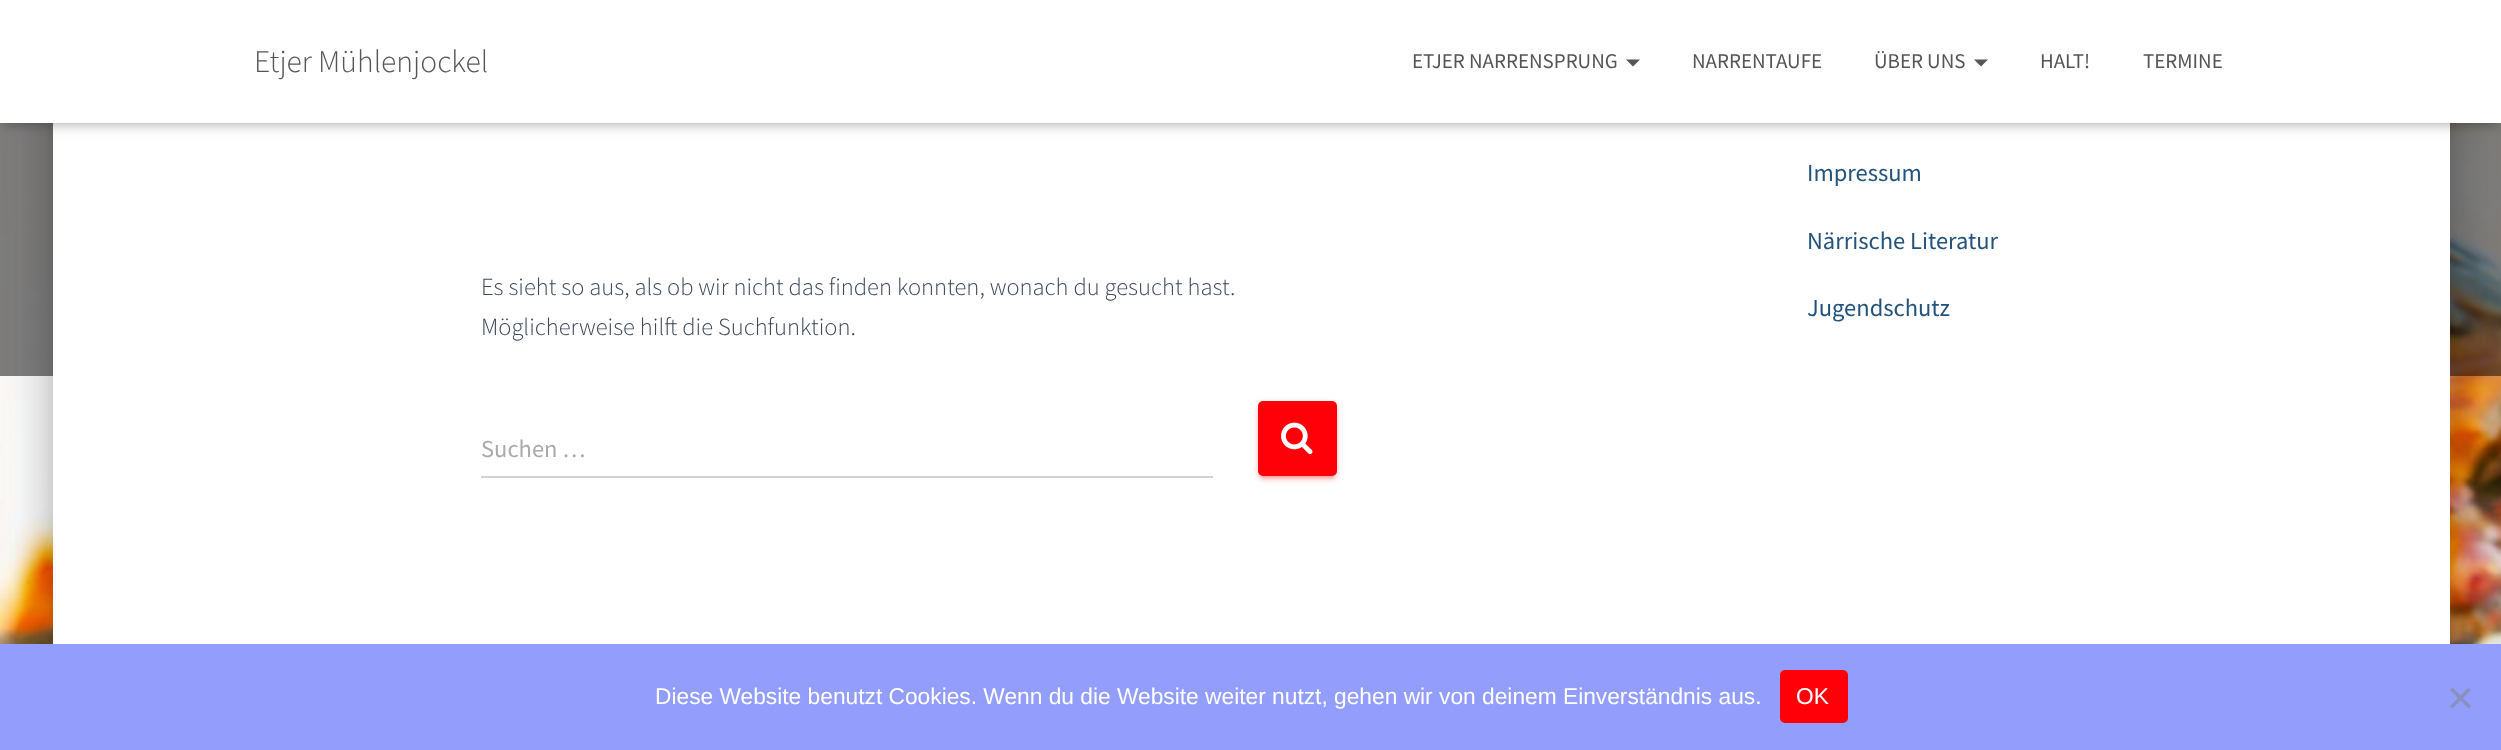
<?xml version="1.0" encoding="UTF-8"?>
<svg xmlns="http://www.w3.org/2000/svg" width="2501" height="750">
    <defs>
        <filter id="blur1" x="-50%" y="-200%" width="200%" height="500%"><feGaussianBlur stdDeviation="9"/></filter>
        <filter id="blur2" x="-50%" y="-200%" width="200%" height="500%"><feGaussianBlur stdDeviation="26"/></filter>
        <filter id="blur3" x="-50%" y="-200%" width="200%" height="500%"><feGaussianBlur stdDeviation="21"/></filter>
        <filter id="blur4" x="-50%" y="-200%" width="200%" height="500%"><feGaussianBlur stdDeviation="4.5"/></filter>
        <filter id="blur5" x="-50%" y="-200%" width="200%" height="500%"><feGaussianBlur stdDeviation="1"/></filter>
        <filter id="blur6" x="-50%" y="-200%" width="200%" height="500%"><feGaussianBlur stdDeviation="2"/></filter>
    </defs>
    <rect width="100%" height="100%" fill="#FFFFFF"/>
    <image x="0" y="123" width="2501" height="521" href="img_01.png"/>
    <rect x="0" y="123" width="2501" height="253" fill="#000000" fill-opacity="0.5"/>
    <rect x="61" y="54" width="2380" height="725" rx="2" fill="#000000" fill-opacity="0.2" filter="url(#blur1)"/>
    <rect x="44" y="33" width="2415" height="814" rx="19" fill="#000000" fill-opacity="0.12" filter="url(#blur2)"/>
    <rect x="49" y="56" width="2405" height="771" rx="14" fill="#000000" fill-opacity="0.14" filter="url(#blur3)"/>
    <rect x="53" y="123" width="2397" height="521" fill="#FFFFFF"/>
    <rect x="4" y="11" width="2495" height="115" fill="#000000" fill-opacity="0.1" filter="url(#blur4)"/>
    <rect x="0" y="2" width="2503" height="122" fill="#000000" fill-opacity="0.12" filter="url(#blur1)"/>
    <rect x="11" y="12" width="2481" height="102" fill="#000000" fill-opacity="0.42" filter="url(#blur1)"/>
    <rect x="0" y="0" width="2501" height="123" fill="#FFFFFF"/>
    <text x="254" y="72" font-family="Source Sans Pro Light" font-size="31.5" font-weight="300" fill="#555555">Etjer Mühlenjockel</text>
    <text x="1412" y="68" font-family="Source Sans Pro" font-size="21" fill="#555555">ETJER NARRENSPRUNG</text>
    <path d="M 1626 59.5 H 1640 L 1633 66.5 Z" fill="#555555"/>
    <text x="1692" y="68" font-family="Source Sans Pro" font-size="21" fill="#555555">NARRENTAUFE</text>
    <text x="1874" y="68" font-family="Source Sans Pro" font-size="21" fill="#555555">ÜBER UNS</text>
    <path d="M 1974 59.5 H 1988 L 1981 66.5 Z" fill="#555555"/>
    <text x="2040" y="68" font-family="Source Sans Pro" font-size="21" fill="#555555">HALT!</text>
    <text x="2143" y="68" font-family="Source Sans Pro" font-size="21" fill="#555555">TERMINE</text>
    <text x="1807" y="181" font-family="Source Sans Pro" font-size="24.5" fill="#23527C">Impressum</text>
    <text x="1807" y="249" font-family="Source Sans Pro" font-size="24.5" fill="#23527C">Närrische Literatur</text>
    <text x="1807" y="316" font-family="Source Sans Pro" font-size="24.5" fill="#23527C">Jugendschutz</text>
    <text font-family="Source Sans Pro Light" font-size="24.5" font-weight="300" fill="#3C4858">
        <tspan x="481" y="295">Es sieht so aus, als ob wir nicht das finden konnten, wonach du gesucht hast.</tspan>
        <tspan x="481" y="335">Möglicherweise hilft die Suchfunktion.</tspan>
    </text>
    <text x="481" y="457" font-family="Source Sans Pro" font-size="24.5" fill="#AAAAAA">Suchen …</text>
    <rect x="481" y="476" width="732" height="2" fill="#D2D2D2"/>
    <rect x="1258" y="403" width="79" height="75" rx="5" fill="#FF0008" fill-opacity="0.12" filter="url(#blur4)"/>
    <rect x="1262" y="410" width="72" height="68" rx="2" fill="#FF0008" fill-opacity="0.2" filter="url(#blur5)"/>
    <rect x="1258" y="404" width="79" height="76" rx="5" fill="#FF0008" fill-opacity="0.14" filter="url(#blur6)"/>
    <rect x="1258" y="401" width="79" height="75" rx="5" fill="#FF0008"/>
    <image x="1281" y="422" width="32" height="33" href="img_02.png"/>
    <rect x="0" y="644" width="2501" height="106" fill="#929DFC"/>
    <text x="655" y="704" font-family="Liberation Sans" font-size="22.75" fill="#FFFFFF">Diese Website benutzt Cookies. Wenn du die Website weiter nutzt, gehen wir von deinem Einverständnis aus.</text>
    <rect x="1780" y="670" width="68" height="53" rx="5" fill="#FF0008"/>
    <text x="1796" y="704" font-family="Liberation Sans" font-size="22.75" fill="#FFFFFF">OK</text>
    <path d="M 2468.5 687.5 L 2471 690 L 2452.5 708.5 L 2450 706 Z" fill="#898FBE"/>
    <path d="M 2450 690 L 2452.5 687.5 L 2471 706 L 2468.5 708.5 Z" fill="#898FBE"/>
</svg>
